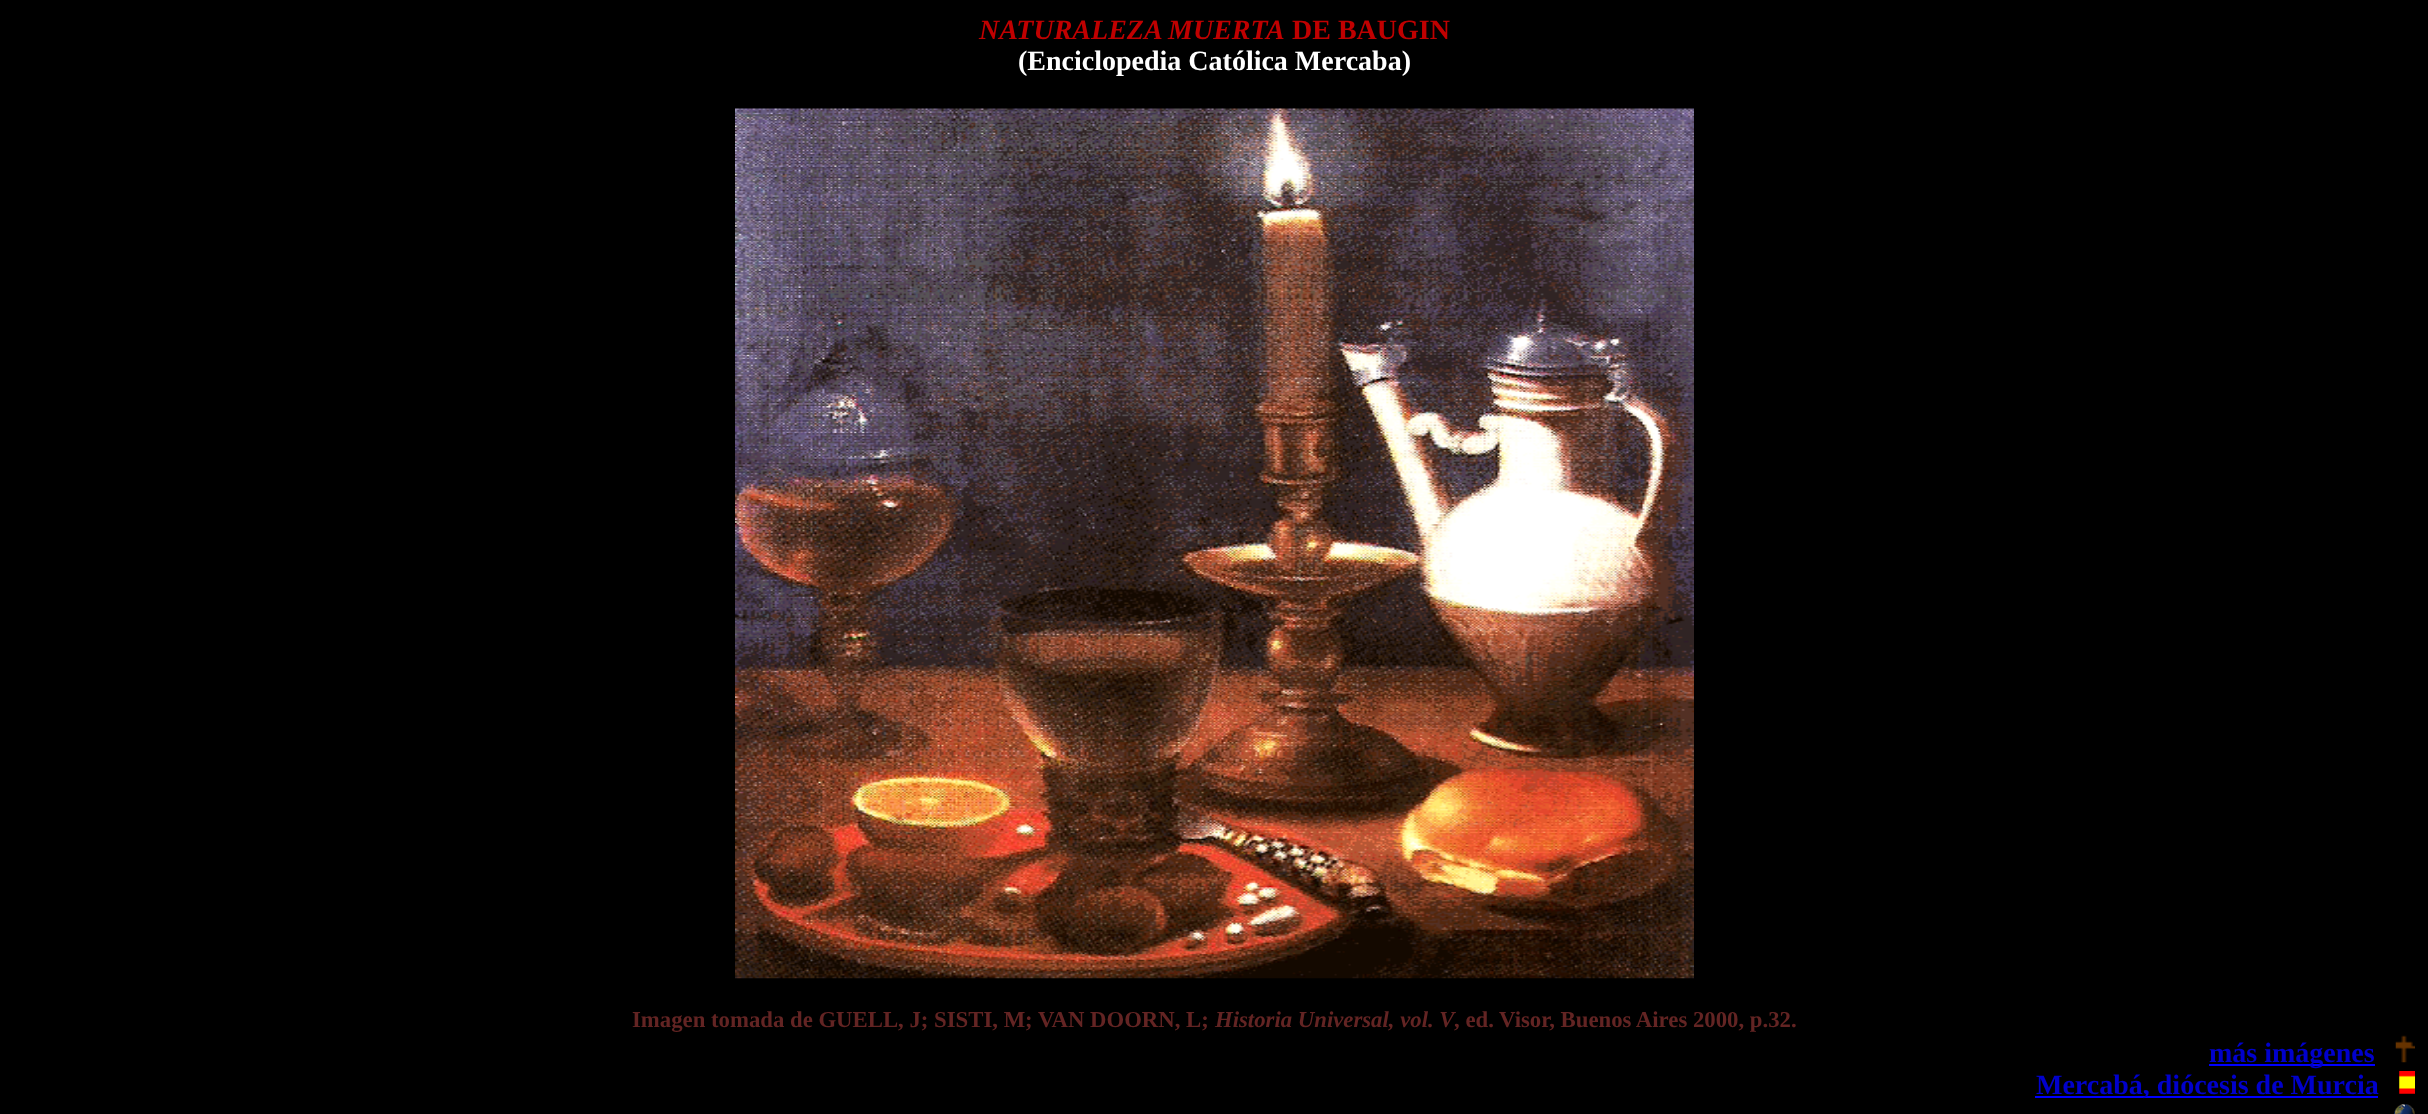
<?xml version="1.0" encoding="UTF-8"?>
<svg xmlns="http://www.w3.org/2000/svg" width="2428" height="1114">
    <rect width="100%" height="100%" fill="#000000"/>
    <text x="979" y="39" font-family="Liberation Serif" font-size="28" font-weight="700" font-style="italic" fill="#C00000">NATURALEZA MUERTA</text>
    <text x="1292" y="39" font-family="Liberation Serif" font-size="28" font-weight="700" fill="#C00000">DE BAUGIN</text>
    <text x="1018" y="70" font-family="Liberation Serif" font-size="28" font-weight="700" fill="#FFFFFF">(Enciclopedia Católica Mercaba)</text>
    <image x="735" y="108" width="959" height="871" href="img_01.png"/>
    <text x="632" y="1027" font-family="Liberation Serif" font-size="22.75" font-weight="700" fill="#632423">Imagen tomada de GUELL, J; SISTI, M; VAN DOORN, L;</text>
    <text x="1215" y="1027" font-family="Liberation Serif" font-size="22.75" font-weight="700" font-style="italic" fill="#632423">Historia Universal, vol. V</text>
    <text x="1454" y="1027" font-family="Liberation Serif" font-size="22.75" font-weight="700" fill="#632423">, ed. Visor, Buenos Aires 2000, p.32.</text>
    <rect x="2209" y="1064" width="166" height="2" fill="#0000FF"/>
    <text x="2209" y="1062" font-family="Liberation Serif" font-size="28" font-weight="700" fill="#0000CC">más imágenes</text>
    <image x="2395" y="1035" width="20" height="28" href="img_02.png"/>
    <rect x="2035" y="1096" width="343" height="2" fill="#0000FF"/>
    <text x="2036" y="1094" font-family="Liberation Serif" font-size="28" font-weight="700" fill="#0000CC">Mercabá, diócesis de Murcia</text>
    <image x="2399" y="1071" width="16" height="23" href="img_03.png"/>
    <image x="2394" y="1104" width="21" height="10" href="img_04.png"/>
</svg>
